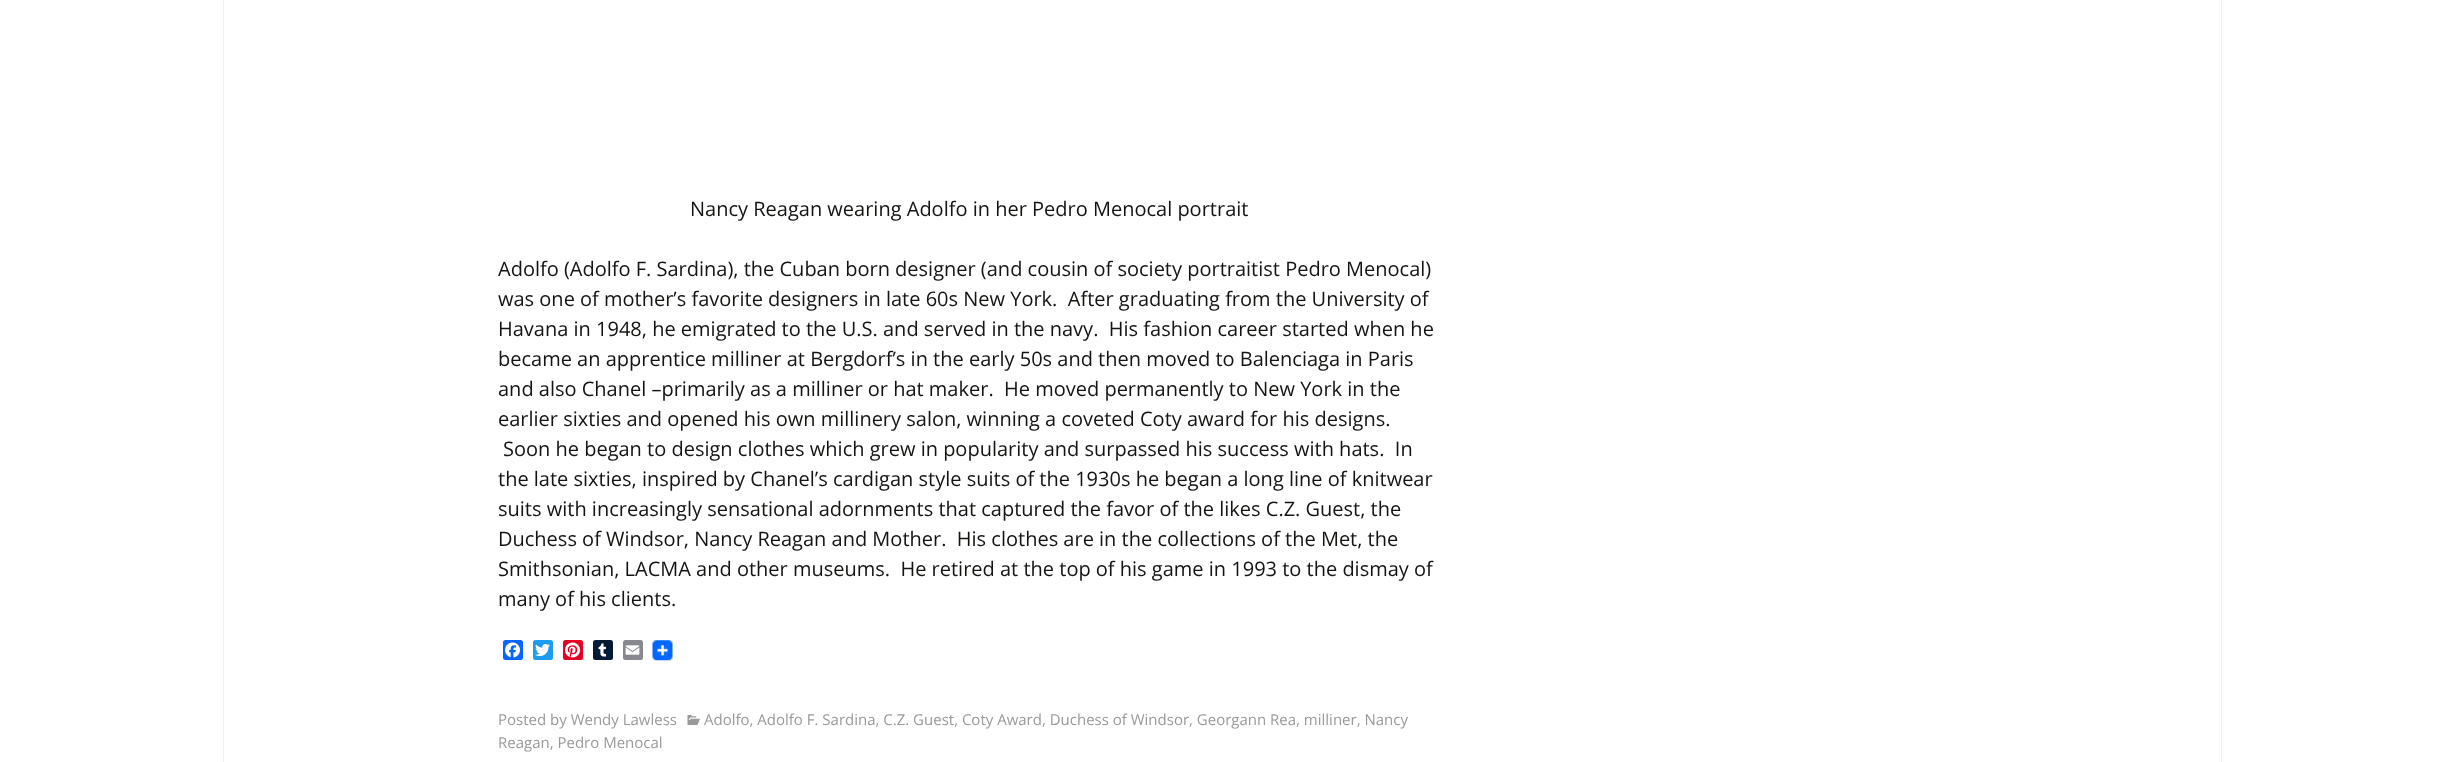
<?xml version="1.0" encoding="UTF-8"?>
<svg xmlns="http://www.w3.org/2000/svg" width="2444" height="762">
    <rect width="100%" height="100%" fill="#FFFFFF"/>
    <rect x="2221" y="0" width="1" height="762" fill="#F2F2F2"/>
    <rect x="223" y="0" width="1" height="762" fill="#F2F2F2"/>
    <text x="690" y="216" font-family="Open Sans" font-size="20" fill="#141412">Nancy Reagan wearing Adolfo in her Pedro Menocal portrait</text>
    <text font-family="Open Sans" font-size="20" fill="#141412" xml:space="preserve"><tspan x="498" y="276">Adolfo (Adolfo F. Sardina), the Cuban born designer (and cousin of society portraitist Pedro Menocal)</tspan><tspan x="498" y="306">was one of mother’s favorite designers in late 60s New York.  After graduating from the University of</tspan><tspan x="498" y="336">Havana in 1948, he emigrated to the U.S. and served in the navy.  His fashion career started when he</tspan><tspan x="498" y="366">became an apprentice milliner at Bergdorf’s in the early 50s and then moved to Balenciaga in Paris</tspan><tspan x="498" y="396">and also Chanel –primarily as a milliner or hat maker.  He moved permanently to New York in the</tspan><tspan x="498" y="426">earlier sixties and opened his own millinery salon, winning a coveted Coty award for his designs.</tspan></text>
    <text x="503" y="456" font-family="Open Sans" font-size="20" fill="#141412" xml:space="preserve">Soon he began to design clothes which grew in popularity and surpassed his success with hats.  In</text>
    <text font-family="Open Sans" font-size="20" fill="#141412" xml:space="preserve"><tspan x="498" y="486">the late sixties, inspired by Chanel’s cardigan style suits of the 1930s he began a long line of knitwear</tspan><tspan x="498" y="516">suits with increasingly sensational adornments that captured the favor of the likes C.Z. Guest, the</tspan><tspan x="498" y="546">Duchess of Windsor, Nancy Reagan and Mother.  His clothes are in the collections of the Met, the</tspan><tspan x="498" y="576">Smithsonian, LACMA and other museums.  He retired at the top of his game in 1993 to the dismay of</tspan><tspan x="498" y="606">many of his clients.</tspan></text>
    <rect x="503" y="640" width="20" height="20" rx="2.5" fill="#0866FF"/>
    <image x="505" y="642" width="15" height="16" href="img_01.png"/>
    <rect x="533" y="640" width="20" height="20" rx="2.5" fill="#1D9BF0"/>
    <image x="535" y="643" width="15" height="14" href="img_02.png"/>
    <rect x="563" y="640" width="20" height="20" rx="2.5" fill="#E60023"/>
    <image x="565" y="642" width="15" height="16" href="img_03.png"/>
    <rect x="593" y="640" width="20" height="20" rx="2.5" fill="#001935"/>
    <image x="598" y="643" width="8" height="14" href="img_04.png"/>
    <rect x="623" y="640" width="20" height="20" rx="2.5" fill="#888990"/>
    <image x="625" y="645" width="15" height="10" href="img_05.png"/>
    <image x="652" y="640" width="21" height="21" href="img_06.png"/>
    <text x="498" y="725" font-family="Open Sans" font-size="15" fill="#999999">Posted by Wendy Lawless</text>
    <image x="687" y="715" width="13" height="10" href="img_07.png"/>
    <text x="704" y="725" font-family="Open Sans" font-size="15" fill="#999999">Adolfo, Adolfo F. Sardina, C.Z. Guest, Coty Award, Duchess of Windsor, Georgann Rea, milliner, Nancy</text>
    <text x="498" y="748" font-family="Open Sans" font-size="15" fill="#999999">Reagan, Pedro Menocal</text>
</svg>
